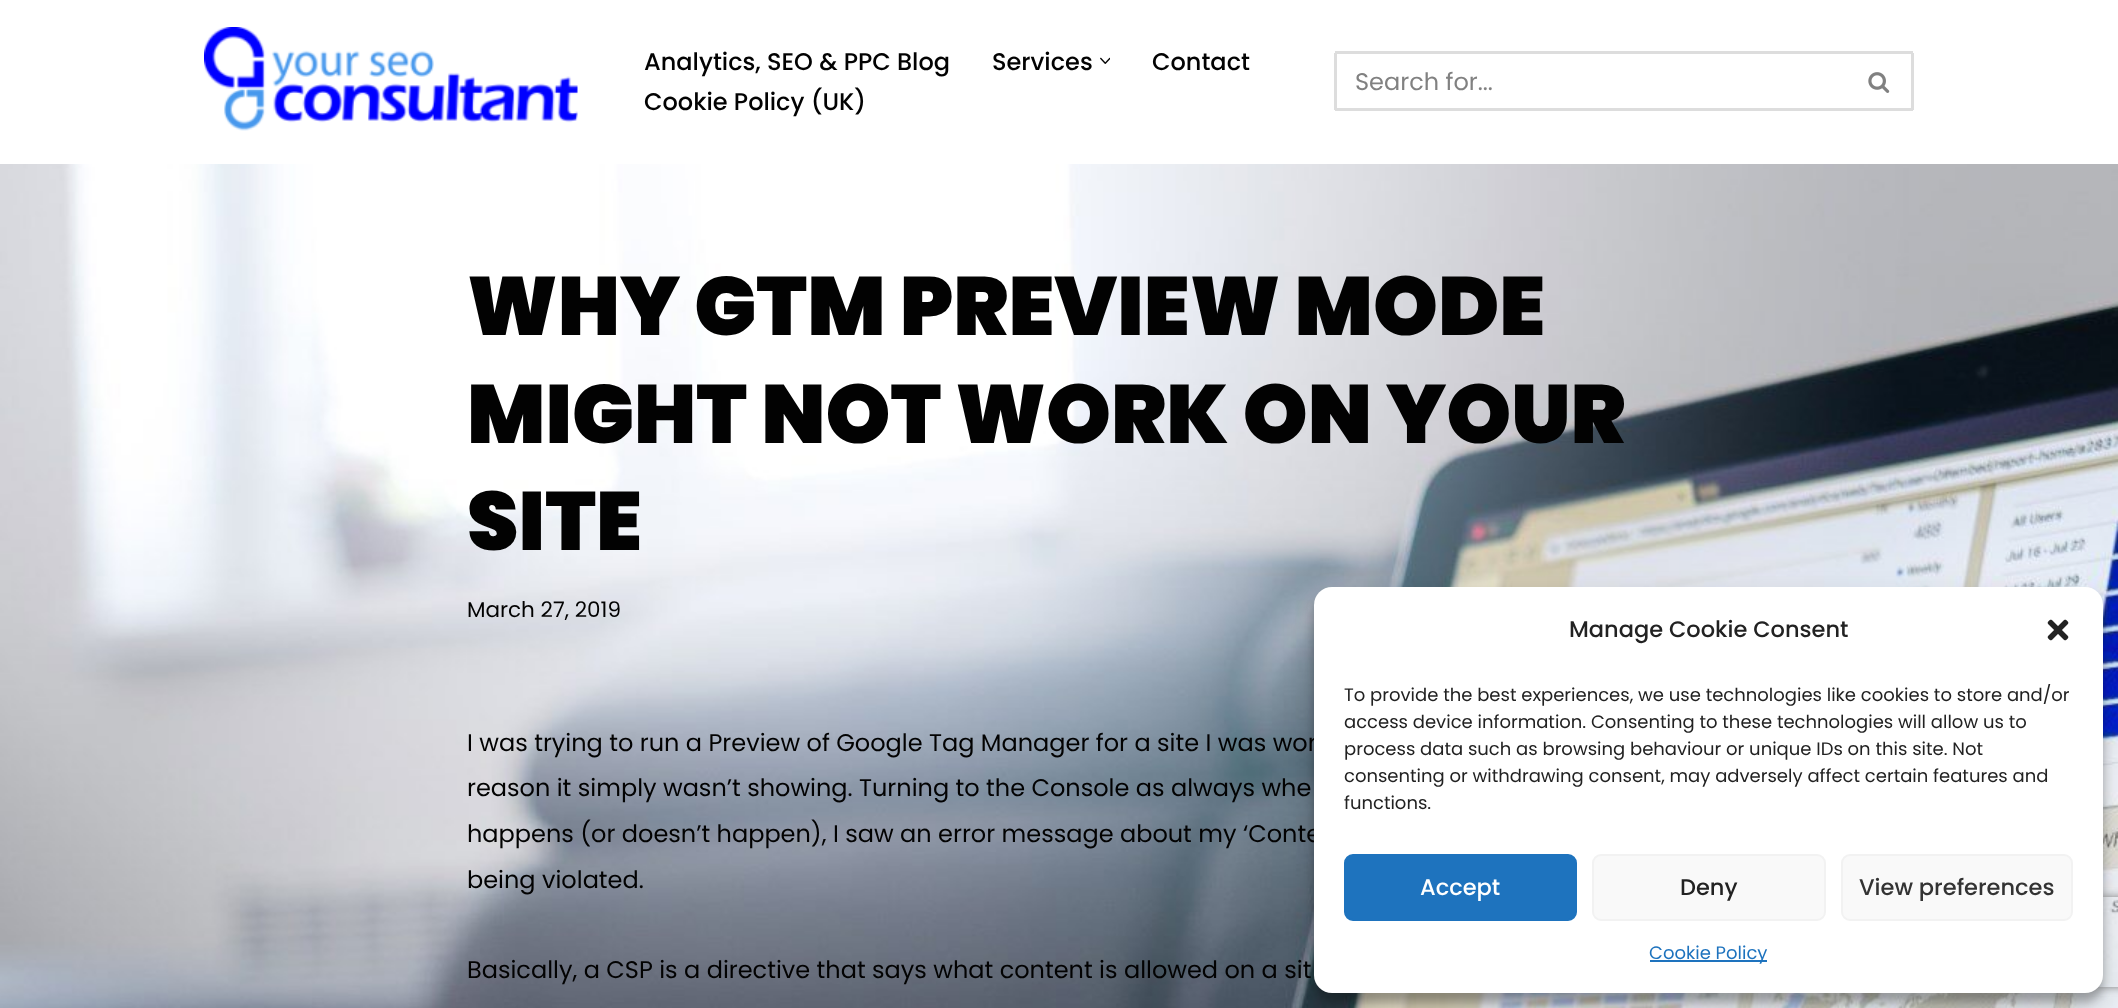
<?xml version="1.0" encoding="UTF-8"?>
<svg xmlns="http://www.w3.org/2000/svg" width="2118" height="1008">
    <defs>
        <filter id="blur1" x="-50%" y="-200%" width="200%" height="500%"><feGaussianBlur stdDeviation="4.5"/></filter>
        <filter id="blur2" x="-50%" y="-200%" width="200%" height="500%"><feGaussianBlur stdDeviation="15"/></filter>
        <clipPath id="clip1"><path d="M 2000 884 H 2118 V 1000 H 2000 Z M 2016 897 H 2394 C 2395.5 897 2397 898.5 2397 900 V 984 C 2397 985.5 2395.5 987 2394 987 H 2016 C 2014.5 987 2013 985.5 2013 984 V 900 C 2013 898.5 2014.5 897 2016 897 Z" clip-rule="evenodd"/></clipPath>
        <filter id="blur3" x="-50%" y="-200%" width="200%" height="500%"><feGaussianBlur stdDeviation="4"/></filter>
    </defs>
    <rect width="100%" height="100%" fill="#FFFFFF"/>
    <image x="0" y="164" width="2118" height="844" href="img_01.png"/>
    <image x="204" y="27" width="374" height="104" href="img_02.png"/>
    <text x="644" y="70" font-family="Poppins" font-size="24" font-weight="500" fill="#020202">Analytics, SEO &amp; PPC Blog</text>
    <text x="992" y="70" font-family="Poppins" font-size="24" font-weight="500" fill="#020202">Services</text>
    <image x="1100" y="57" width="10" height="7" href="img_03.png"/>
    <text x="1152" y="70" font-family="Poppins" font-size="24" font-weight="500" fill="#020202">Contact</text>
    <text x="644" y="110" font-family="Poppins" font-size="24" font-weight="500" fill="#020202">Cookie Policy (UK)</text>
    <rect x="1335" y="51" width="578" height="3" fill="#DDDDDD"/>
    <rect x="1335" y="108" width="512" height="3" fill="#DDDDDD"/>
    <rect x="1334" y="53" width="3" height="57" fill="#DDDDDD"/>
    <text x="1355" y="90" font-family="Poppins" font-size="24" fill="#818181">Search for...</text>
    <rect x="1911" y="53" width="3" height="57" fill="#DDDDDD"/>
    <rect x="1847" y="108" width="66" height="3" fill="#DDDDDD"/>
    <image x="1868" y="72" width="22" height="21" href="img_04.png"/>
    <text font-family="Poppins" font-size="82.5" font-weight="900" fill="#020202">
        <tspan x="467" y="335">WHY GTM PREVIEW MODE</tspan>
        <tspan x="467" y="443">MIGHT NOT WORK ON YOUR</tspan>
        <tspan x="467" y="550">SITE</tspan>
    </text>
    <text x="467" y="617" font-family="Poppins" font-size="21.5" fill="#020202">March 27, 2019</text>
    <text font-family="Poppins" font-size="24" fill="#020202">
        <tspan x="467" y="751">I was trying to run a Preview of Google Tag Manager for a site I was wor</tspan>
        <tspan x="467" y="796">reason it simply wasn’t showing. Turning to the Console as always whe</tspan>
        <tspan x="467" y="842">happens (or doesn’t happen), I saw an error message about my ‘Conte</tspan>
        <tspan x="467" y="888">being violated.</tspan>
    </text>
    <text x="467" y="978" font-family="Poppins" font-size="24" fill="#020202">Basically, a CSP is a directive that says what content is allowed on a sit</text>
    <rect x="1314" y="596" width="789" height="406" rx="18" fill="#000000" fill-opacity="0.23" filter="url(#blur1)"/>
    <rect x="1314" y="602" width="789" height="406" rx="18" fill="#000000" fill-opacity="0.19" filter="url(#blur2)"/>
    <g clip-path="url(#clip1)">
        <rect x="2013" y="897" width="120" height="90" rx="3" fill="#808080" filter="url(#blur3)"/>
    </g>
    <rect x="1314" y="587" width="789" height="406" rx="18" fill="#FFFFFF"/>
    <text x="1569" y="637" font-family="Poppins" font-size="22.5" font-weight="500" fill="#222222">Manage Cookie Consent</text>
    <image x="2047" y="619" width="22" height="22" href="img_05.png"/>
    <text font-family="Poppins" font-size="18" fill="#222222">
        <tspan x="1344" y="701">To provide the best experiences, we use technologies like cookies to store and/or</tspan>
        <tspan x="1344" y="728">access device information. Consenting to these technologies will allow us to</tspan>
        <tspan x="1344" y="755">process data such as browsing behaviour or unique IDs on this site. Not</tspan>
        <tspan x="1344" y="782">consenting or withdrawing consent, may adversely affect certain features and</tspan>
        <tspan x="1344" y="809">functions.</tspan>
    </text>
    <rect x="1345" y="855" width="231" height="65" rx="8" fill="#1E73BE" stroke="#1E73BE" stroke-width="2"/>
    <text x="1420" y="895" font-family="Poppins" font-size="22.5" font-weight="500" fill="#FFFFFF">Accept</text>
    <rect x="1593" y="855" width="232" height="65" rx="8" fill="#F9F9F9" stroke="#F2F2F2" stroke-width="2"/>
    <text x="1680" y="895" font-family="Poppins" font-size="22.5" font-weight="500" fill="#222222">Deny</text>
    <rect x="1842" y="855" width="230" height="65" rx="8" fill="#F9F9F9" stroke="#F2F2F2" stroke-width="2"/>
    <text x="1859" y="895" font-family="Poppins" font-size="22.5" font-weight="500" fill="#333333">View preferences</text>
    <rect x="1650" y="960" width="117" height="2" fill="#1E73BE"/>
    <text x="1649" y="959" font-family="Poppins" font-size="18" fill="#1E73BE">Cookie Policy</text>
</svg>
